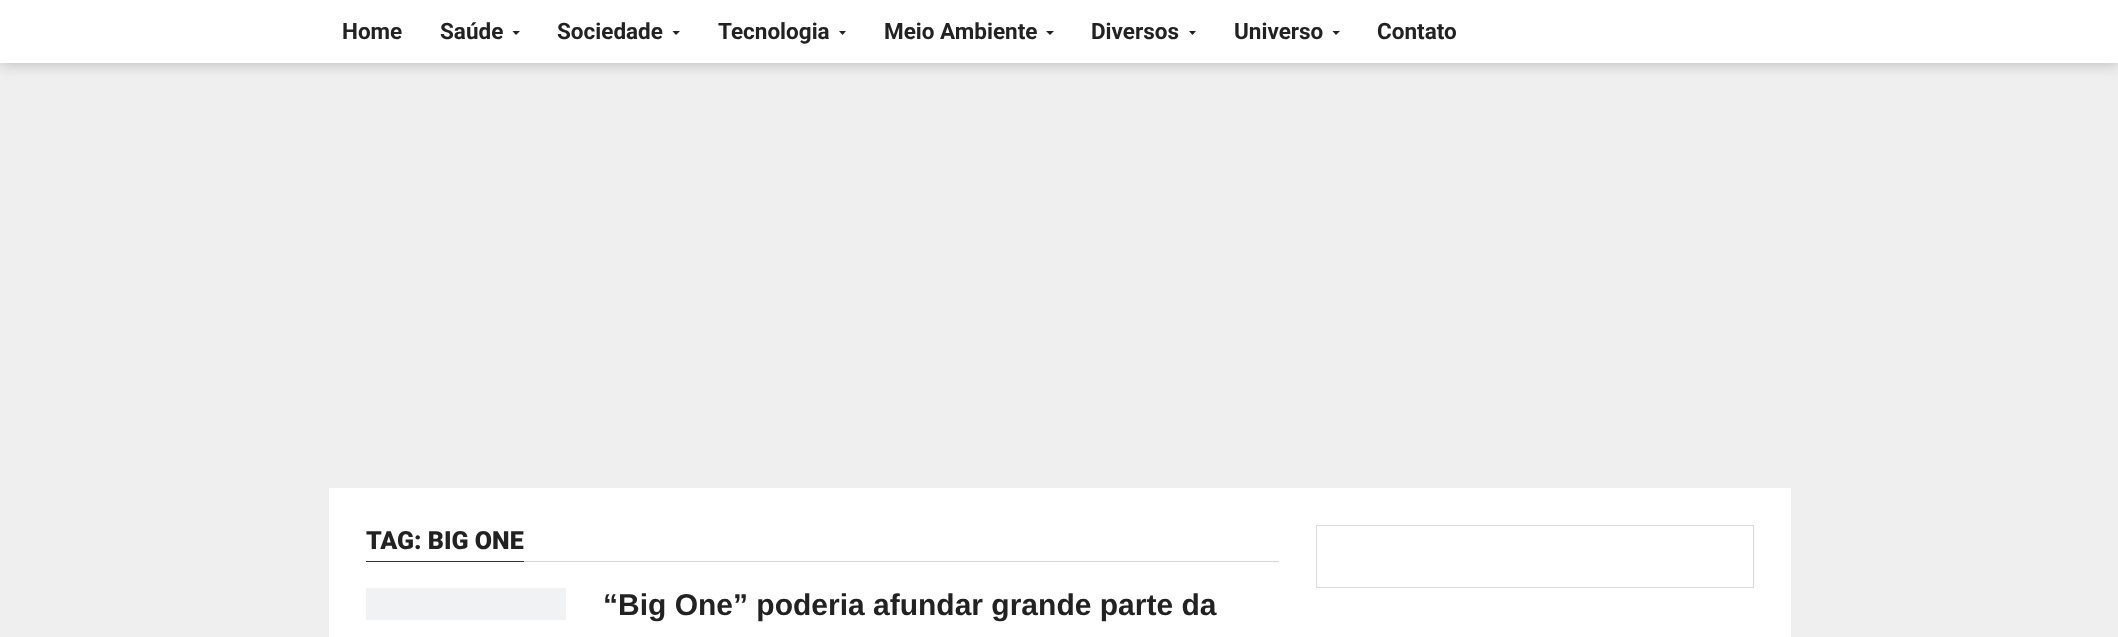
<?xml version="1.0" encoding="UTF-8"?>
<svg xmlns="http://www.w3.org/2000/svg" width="2118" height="637">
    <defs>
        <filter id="blur1" x="-50%" y="-200%" width="200%" height="500%"><feGaussianBlur stdDeviation="8"/></filter>
    </defs>
    <rect width="100%" height="100%" fill="#EFEFEF"/>
    <rect x="0" y="0" width="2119" height="63" fill="#000000" fill-opacity="0.25" filter="url(#blur1)"/>
    <rect x="0" y="0" width="2118" height="63" fill="#FFFFFF"/>
    <text x="342" y="39" font-family="Roboto" font-size="22.5" font-weight="700" fill="#222222">Home</text>
    <text x="440" y="39" font-family="Roboto" font-size="22.5" font-weight="700" fill="#222222">Saúde</text>
    <path d="M 512.5 31 H 520 L 516 35 Z" fill="#222222"/>
    <text x="557" y="39" font-family="Roboto" font-size="22.5" font-weight="700" fill="#222222">Sociedade</text>
    <path d="M 672.5 31 H 680 L 676 35 Z" fill="#222222"/>
    <text x="718" y="39" font-family="Roboto" font-size="22.5" font-weight="700" fill="#222222">Tecnologia</text>
    <path d="M 839 31 H 846 L 842.5 35 Z" fill="#222222"/>
    <text x="884" y="39" font-family="Roboto" font-size="22.5" font-weight="700" fill="#222222">Meio Ambiente</text>
    <path d="M 1046 31 H 1054 L 1050 35 Z" fill="#222222"/>
    <text x="1091" y="39" font-family="Roboto" font-size="22.5" font-weight="700" fill="#222222">Diversos</text>
    <path d="M 1189 31 H 1196 L 1192.5 35 Z" fill="#222222"/>
    <text x="1234" y="39" font-family="Roboto" font-size="22.5" font-weight="700" fill="#222222">Universo</text>
    <path d="M 1332.5 31 H 1340 L 1336 35 Z" fill="#222222"/>
    <text x="1377" y="39" font-family="Roboto" font-size="22.5" font-weight="700" fill="#222222">Contato</text>
    <rect x="329" y="488" width="1462" height="149" fill="#FFFFFF"/>
    <rect x="524" y="561" width="755" height="1" fill="#D6D6D6"/>
    <rect x="366" y="561" width="158" height="1" fill="#333333"/>
    <text x="366" y="549" font-family="Roboto" font-size="25" font-weight="900" fill="#222222">TAG: BIG ONE</text>
    <rect x="366" y="588" width="200" height="32" fill="#F1F2F4"/>
    <text x="603" y="615" font-family="Liberation Sans" font-size="30" font-weight="700" fill="#222222">“Big One” poderia afundar grande parte da</text>
    <rect x="1316.5" y="525.5" width="437" height="62" fill="none" stroke="#DADADA"/>
</svg>
